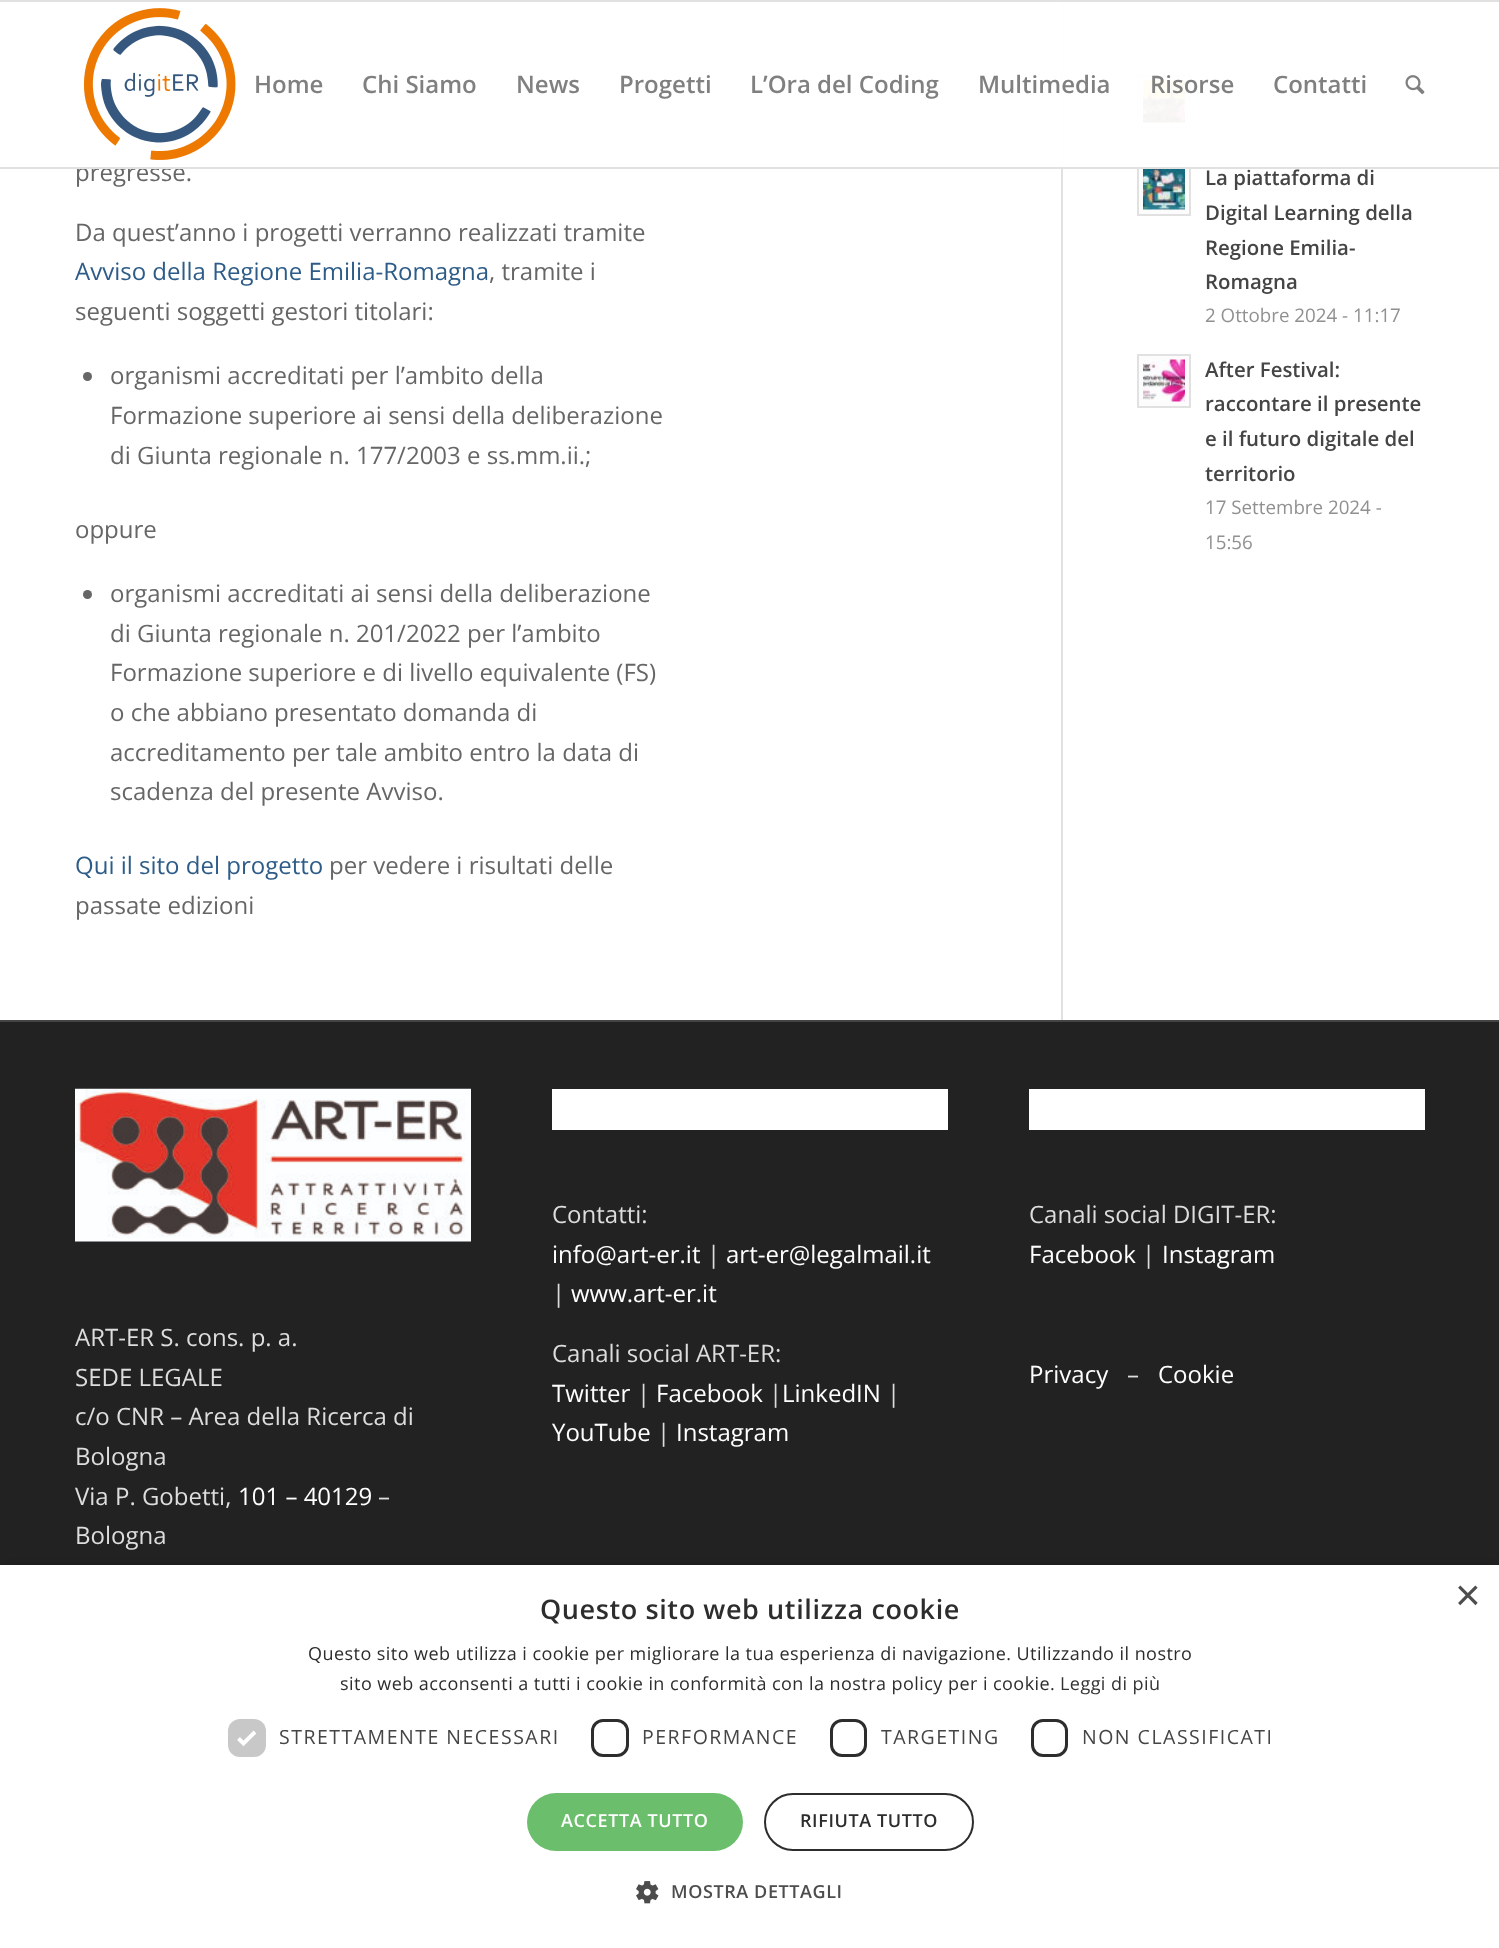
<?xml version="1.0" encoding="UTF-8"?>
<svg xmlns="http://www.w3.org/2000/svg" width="1499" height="1948">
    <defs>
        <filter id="blur1" x="-50%" y="-200%" width="200%" height="500%"><feGaussianBlur stdDeviation="6"/></filter>
    </defs>
    <rect width="100%" height="100%" fill="#FFFFFF"/>
    <rect x="1061" y="0" width="2" height="1020" fill="#E1E1E1"/>
    <rect x="1138" y="76" width="52" height="52" fill="#FCFCFC" stroke="#E1E1E1" stroke-width="2"/>
    <image x="1143" y="80" width="42" height="43" href="img_03.png"/>
    <rect x="1138" y="163" width="52" height="52" fill="#FCFCFC" stroke="#E1E1E1" stroke-width="2"/>
    <rect x="1061" y="2" width="130" height="165" fill="#FFFFFF" fill-opacity="0.95"/>
    <rect x="0" y="0" width="1499" height="2" fill="#E1E1E1"/>
    <text x="75" y="181" font-family="Open Sans" font-size="24" fill="#666666">pregresse.</text>
    <rect x="0" y="167" width="1499" height="2" fill="#E1E1E1"/>
    <image x="83" y="8" width="153" height="152" href="img_01.png"/>
    <text x="254" y="93" font-family="Open Sans" font-size="24" font-weight="600" fill="#808080">Home</text>
    <text x="362" y="93" font-family="Open Sans" font-size="24" font-weight="600" fill="#808080">Chi Siamo</text>
    <text x="516" y="93" font-family="Open Sans" font-size="24" font-weight="600" fill="#808080">News</text>
    <text x="619" y="93" font-family="Open Sans" font-size="24" font-weight="600" fill="#808080">Progetti</text>
    <text x="750" y="93" font-family="Open Sans" font-size="24" font-weight="600" fill="#808080">L’Ora del Coding</text>
    <text x="978" y="93" font-family="Open Sans" font-size="24" font-weight="600" fill="#808080">Multimedia</text>
    <text x="1150" y="93" font-family="Open Sans" font-size="24" font-weight="600" fill="#808080">Risorse</text>
    <text x="1273" y="93" font-family="Open Sans" font-size="24" font-weight="600" fill="#808080">Contatti</text>
    <image x="1405" y="75" width="20" height="20" href="img_02.png"/>
    <text x="75" y="241" font-family="Open Sans" font-size="24" fill="#666666">Da quest’anno i progetti verranno realizzati tramite</text>
    <text x="75" y="280" font-family="Open Sans" font-size="24" fill="#2D5C88">Avviso della Regione Emilia-Romagna</text>
    <text x="489" y="280" font-family="Open Sans" font-size="24" fill="#666666">, tramite i</text>
    <text x="75" y="320" font-family="Open Sans" font-size="24" fill="#666666">seguenti soggetti gestori titolari:</text>
    <circle cx="87.5" cy="376.5" r="4.5" fill="#666666"/>
    <text font-family="Open Sans" font-size="24" fill="#666666">
        <tspan x="110" y="384">organismi accreditati per l’ambito della</tspan>
        <tspan x="110" y="424">Formazione superiore ai sensi della deliberazione</tspan>
        <tspan x="110" y="464">di Giunta regionale n. 177/2003 e ss.mm.ii.;</tspan>
    </text>
    <text x="75" y="538" font-family="Open Sans" font-size="24" fill="#666666">oppure</text>
    <circle cx="87.5" cy="594.5" r="4.5" fill="#666666"/>
    <text font-family="Open Sans" font-size="24" fill="#666666">
        <tspan x="110" y="602">organismi accreditati ai sensi della deliberazione</tspan>
        <tspan x="110" y="642">di Giunta regionale n. 201/2022 per l’ambito</tspan>
        <tspan x="110" y="681">Formazione superiore e di livello equivalente (FS)</tspan>
        <tspan x="110" y="721">o che abbiano presentato domanda di</tspan>
        <tspan x="110" y="761">accreditamento per tale ambito entro la data di</tspan>
        <tspan x="110" y="800">scadenza del presente Avviso.</tspan>
    </text>
    <text x="75" y="874" font-family="Open Sans" font-size="24" fill="#2D5C88">Qui il sito del progetto</text>
    <text x="329" y="874" font-family="Open Sans" font-size="24" fill="#666666">per vedere i risultati delle</text>
    <text x="75" y="914" font-family="Open Sans" font-size="24" fill="#666666">passate edizioni</text>
    <image x="1143" y="169" width="42" height="41" href="img_04.png"/>
    <text font-family="Open Sans" font-size="20.4" font-weight="600" fill="#454545">
        <tspan x="1205" y="185">La piattaforma di</tspan>
        <tspan x="1205" y="220">Digital Learning della</tspan>
        <tspan x="1205" y="255">Regione Emilia-</tspan>
        <tspan x="1205" y="289">Romagna</tspan>
    </text>
    <text x="1205" y="322" font-family="Open Sans" font-size="18.75" fill="#919191">2 Ottobre 2024 - 11:17</text>
    <rect x="1138" y="355" width="52" height="52" fill="#FCFCFC" stroke="#E1E1E1" stroke-width="2"/>
    <image x="1143" y="359" width="42" height="43" href="img_05.png"/>
    <text font-family="Open Sans" font-size="20.4" font-weight="600" fill="#454545">
        <tspan x="1205" y="377">After Festival:</tspan>
        <tspan x="1205" y="411">raccontare il presente</tspan>
        <tspan x="1205" y="446">e il futuro digitale del</tspan>
        <tspan x="1205" y="481">territorio</tspan>
    </text>
    <text font-family="Open Sans" font-size="18.75" fill="#919191">
        <tspan x="1205" y="514">17 Settembre 2024 -</tspan>
        <tspan x="1205" y="549">15:56</tspan>
    </text>
    <rect x="0" y="1022" width="1499" height="543" fill="#222222"/>
    <rect x="0" y="1020" width="1499" height="2" fill="#444444"/>
    <image x="75" y="1088" width="396" height="154" href="img_06.png"/>
    <text font-family="Open Sans" font-size="24" fill="#DDDDDD">
        <tspan x="75" y="1346">ART-ER S. cons. p. a.</tspan>
        <tspan x="75" y="1386">SEDE LEGALE</tspan>
        <tspan x="75" y="1425">c/o CNR – Area della Ricerca di</tspan>
        <tspan x="75" y="1465">Bologna</tspan>
        <tspan x="75" y="1505">Via P. Gobetti,</tspan>
    </text>
    <text x="238" y="1505" font-family="Open Sans" font-size="24" fill="#FFFFFF">101 – 40129</text>
    <text x="378" y="1505" font-family="Open Sans" font-size="24" fill="#DDDDDD">–</text>
    <text x="75" y="1544" font-family="Open Sans" font-size="24" fill="#DDDDDD">Bologna</text>
    <rect x="552" y="1089" width="396" height="41" fill="#FFFFFF"/>
    <text x="552" y="1223" font-family="Open Sans" font-size="24" fill="#DDDDDD">Contatti:</text>
    <text x="552" y="1263" font-family="Open Sans" font-size="24" fill="#FFFFFF">info@art-er.it</text>
    <text x="707" y="1263" font-family="Open Sans" font-size="24" fill="#DDDDDD">|</text>
    <text x="726" y="1263" font-family="Open Sans" font-size="24" fill="#FFFFFF">art-er@legalmail.it</text>
    <text x="552" y="1302" font-family="Open Sans" font-size="24" fill="#DDDDDD">|</text>
    <text x="571" y="1302" font-family="Open Sans" font-size="24" fill="#FFFFFF">www.art-er.it</text>
    <text x="552" y="1362" font-family="Open Sans" font-size="24" fill="#DDDDDD">Canali social ART-ER:</text>
    <text x="552" y="1402" font-family="Open Sans" font-size="24" fill="#FFFFFF">Twitter</text>
    <text x="637" y="1402" font-family="Open Sans" font-size="24" fill="#DDDDDD">|</text>
    <text x="656" y="1402" font-family="Open Sans" font-size="24" fill="#FFFFFF">Facebook</text>
    <text x="769" y="1402" font-family="Open Sans" font-size="24" fill="#DDDDDD">|</text>
    <text x="782" y="1402" font-family="Open Sans" font-size="24" fill="#FFFFFF">LinkedIN</text>
    <text x="887" y="1402" font-family="Open Sans" font-size="24" fill="#DDDDDD">|</text>
    <text x="552" y="1441" font-family="Open Sans" font-size="24" fill="#FFFFFF">YouTube</text>
    <text x="657" y="1441" font-family="Open Sans" font-size="24" fill="#DDDDDD">|</text>
    <text x="676" y="1441" font-family="Open Sans" font-size="24" fill="#FFFFFF">Instagram</text>
    <rect x="1029" y="1089" width="396" height="41" fill="#FFFFFF"/>
    <text x="1029" y="1223" font-family="Open Sans" font-size="24" fill="#DDDDDD">Canali social DIGIT-ER:</text>
    <text x="1029" y="1263" font-family="Open Sans" font-size="24" fill="#FFFFFF">Facebook</text>
    <text x="1142" y="1263" font-family="Open Sans" font-size="24" fill="#DDDDDD">|</text>
    <text x="1162" y="1263" font-family="Open Sans" font-size="24" fill="#FFFFFF">Instagram</text>
    <text x="1029" y="1383" font-family="Open Sans" font-size="24" fill="#FFFFFF">Privacy</text>
    <text x="1127" y="1383" font-family="Open Sans" font-size="24" fill="#DDDDDD">–</text>
    <text x="1158" y="1383" font-family="Open Sans" font-size="24" fill="#FFFFFF">Cookie</text>
    <rect x="2" y="1568" width="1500" height="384" fill="#000000" fill-opacity="0.35" filter="url(#blur1)"/>
    <rect x="0" y="1565" width="1499" height="383" fill="#FFFFFF"/>
    <text x="1455" y="1610" font-family="Liberation Sans" font-size="44" fill="#4D4D4D">×</text>
    <text x="540" y="1619" font-family="Open Sans" font-size="27" font-weight="600" letter-spacing="0.6" fill="#2D2D2D">Questo sito web utilizza cookie</text>
    <text x="308" y="1660" font-family="Open Sans" font-size="18" letter-spacing="0.45" fill="#2D2D2D">Questo sito web utilizza i cookie per migliorare la tua esperienza di navigazione. Utilizzando il nostro</text>
    <text x="340" y="1690" font-family="Open Sans" font-size="18" letter-spacing="0.45" fill="#2D2D2D">sito web acconsenti a tutti i cookie in conformità con la nostra policy per i cookie.</text>
    <text x="1060" y="1690" font-family="Open Sans" font-size="18" letter-spacing="0.45" fill="#333333">Leggi di più</text>
    <rect x="228" y="1719" width="38" height="38" rx="12" fill="#C8C8C8"/>
    <path d="M 238.5 1738.5 L 243.5 1743.5 L 255 1732" fill="none" stroke="#FFFFFF" stroke-width="3.9"/>
    <text x="279" y="1744" font-family="Open Sans" font-size="19.5" letter-spacing="1.5" fill="#454545">STRETTAMENTE NECESSARI</text>
    <rect x="592.5" y="1720.5" width="35" height="35" rx="10.5" fill="none" stroke="#2D2D2D" stroke-width="3"/>
    <text x="642" y="1744" font-family="Open Sans" font-size="19.5" letter-spacing="1.5" fill="#454545">PERFORMANCE</text>
    <rect x="831.5" y="1720.5" width="34" height="35" rx="10.5" fill="none" stroke="#2D2D2D" stroke-width="3"/>
    <text x="881" y="1744" font-family="Open Sans" font-size="19.5" letter-spacing="1.5" fill="#454545">TARGETING</text>
    <rect x="1032.5" y="1720.5" width="34" height="35" rx="10.5" fill="none" stroke="#2D2D2D" stroke-width="3"/>
    <text x="1082" y="1744" font-family="Open Sans" font-size="19.5" letter-spacing="1.5" fill="#454545">NON CLASSIFICATI</text>
    <rect x="527" y="1793" width="216" height="58" rx="29" fill="#6BBE6B"/>
    <text x="561" y="1827" font-family="Open Sans" font-size="18" font-weight="600" letter-spacing="0.6" fill="#FFFFFF">ACCETTA TUTTO</text>
    <rect x="765" y="1794" width="208" height="56" rx="28" fill="none" stroke="#2D2D2D" stroke-width="2"/>
    <text x="800" y="1827" font-family="Open Sans" font-size="18" font-weight="600" letter-spacing="0.6" fill="#2D2D2D">RIFIUTA TUTTO</text>
    <image x="636" y="1881" width="23" height="23" href="img_07.png"/>
    <text x="671" y="1898" font-family="Open Sans" font-size="18" font-weight="600" letter-spacing="0.6" fill="#4D4D4D">MOSTRA DETTAGLI</text>
</svg>
